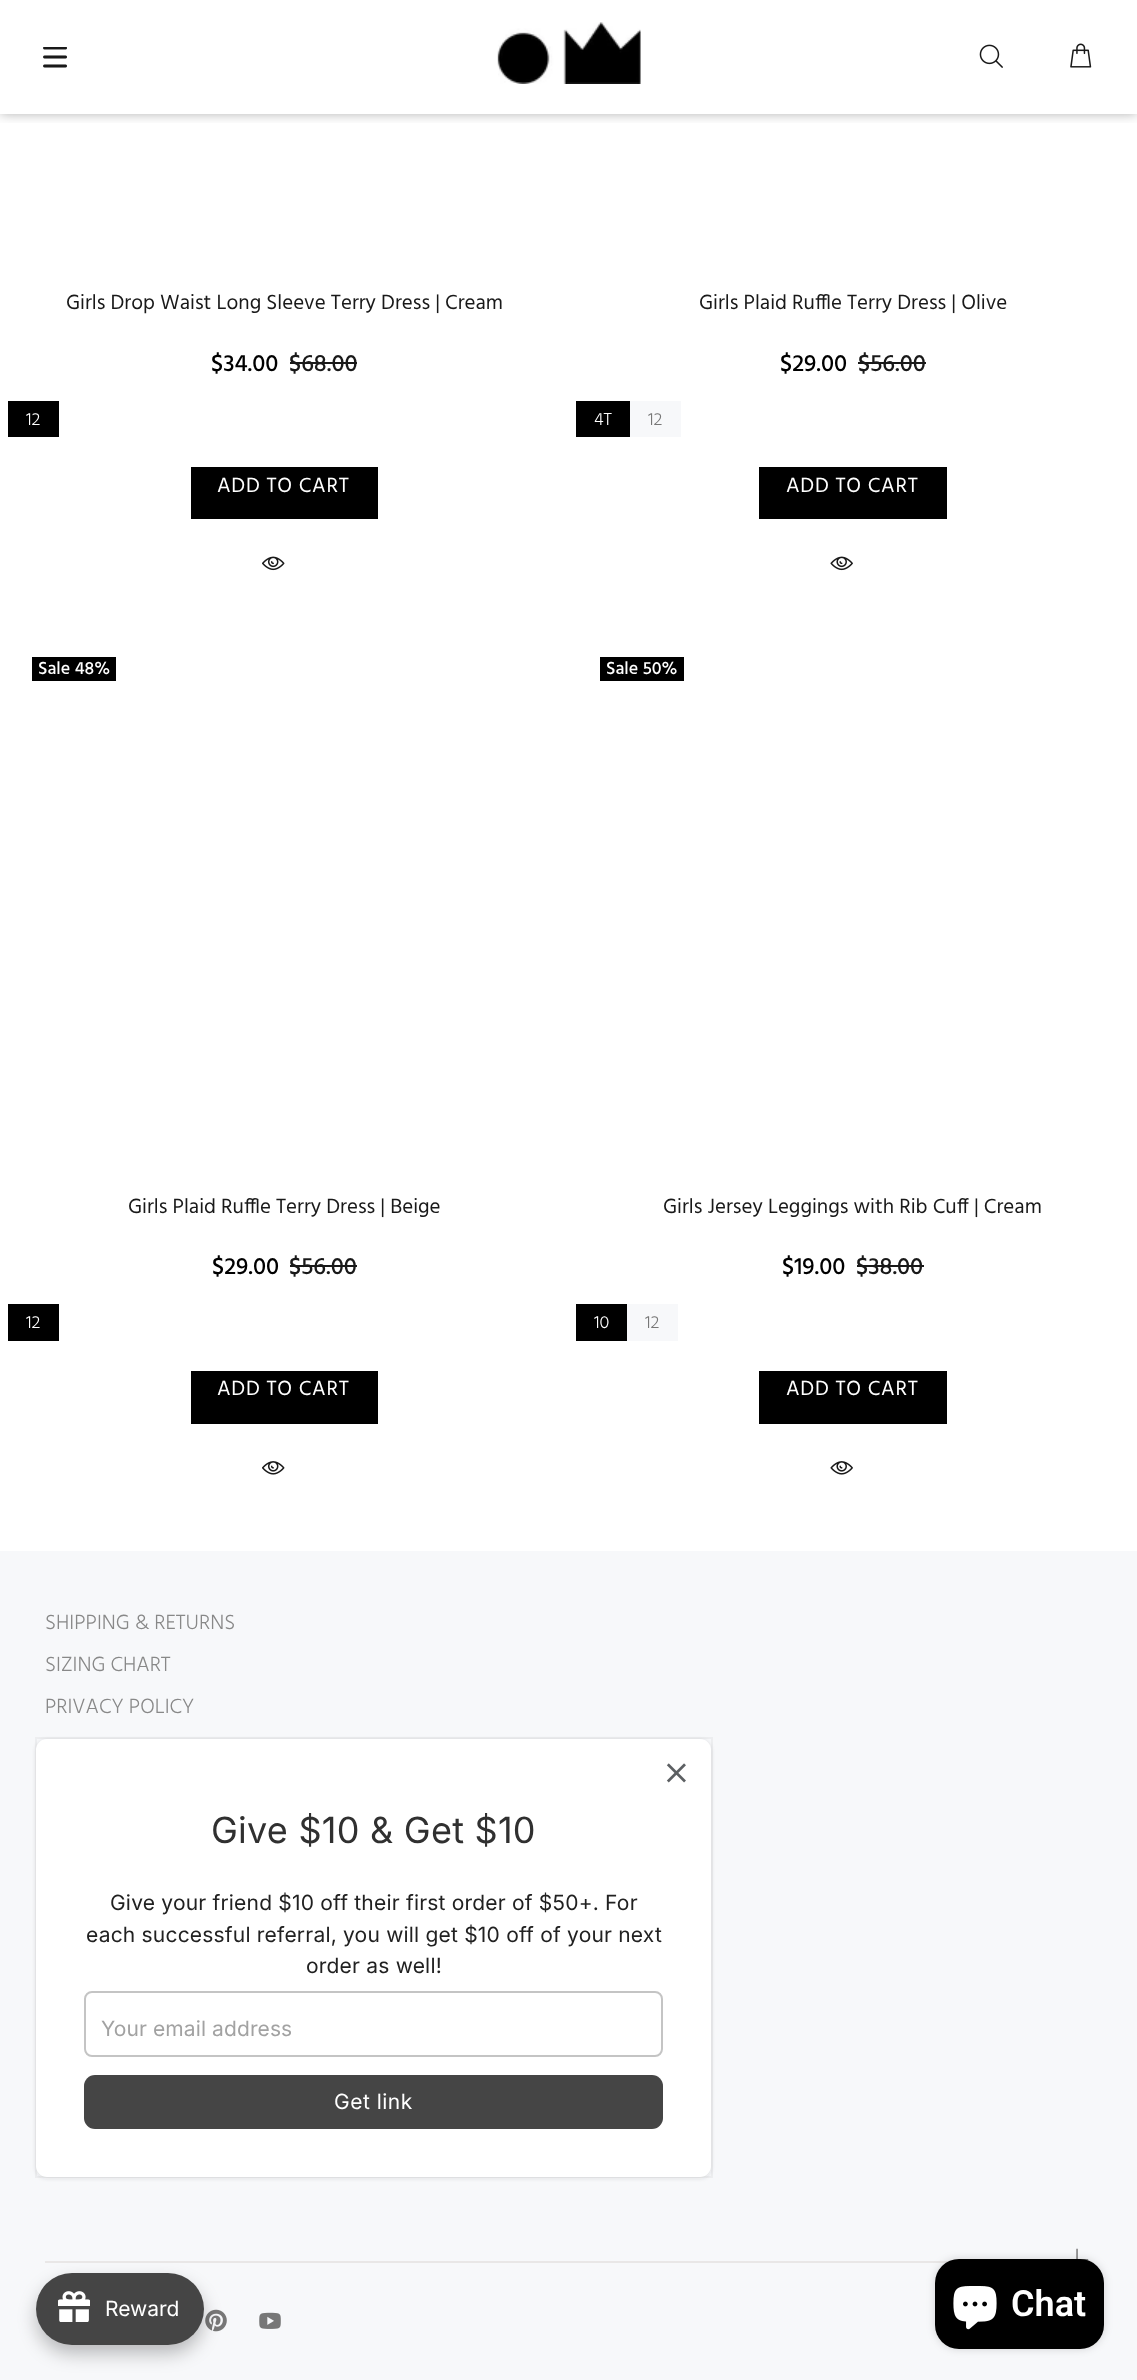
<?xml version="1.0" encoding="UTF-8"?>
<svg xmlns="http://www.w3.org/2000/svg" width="1137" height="2380">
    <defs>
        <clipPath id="clip1"><rect x="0" y="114" width="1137" height="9"/></clipPath>
        <filter id="blur1" x="-50%" y="-200%" width="200%" height="500%"><feGaussianBlur stdDeviation="6"/></filter>
        <filter id="blur2" x="-50%" y="-200%" width="200%" height="500%"><feGaussianBlur stdDeviation="2"/></filter>
        <filter id="blur3" x="-50%" y="-200%" width="200%" height="500%"><feGaussianBlur stdDeviation="9"/></filter>
        <filter id="blur4" x="-50%" y="-200%" width="200%" height="500%"><feGaussianBlur stdDeviation="4"/></filter>
    </defs>
    <rect width="100%" height="100%" fill="#FFFFFF"/>
    <g clip-path="url(#clip1)">
        <rect x="0" y="0" width="1137" height="114" fill="#000000" fill-opacity="0.3" filter="url(#blur1)"/>
    </g>
    <image x="43" y="47" width="24" height="21" href="img_01.png"/>
    <image x="497" y="22" width="144" height="62" href="img_02.png"/>
    <image x="979" y="44" width="24" height="24" href="img_03.png"/>
    <image x="1070" y="43" width="22" height="25" href="img_04.png"/>
    <text x="66" y="309" font-family="Hind" font-size="21" fill="#191919">Girls Drop Waist Long Sleeve Terry Dress | Cream</text>
    <text x="211" y="371" font-family="Hind" font-size="24" font-weight="500" fill="#000000">$34.00</text>
    <text x="289" y="371" font-family="Hind" font-size="24" font-weight="500" fill="#191919">$68.00</text>
    <rect x="290" y="362" width="67" height="2" fill="#191919"/>
    <rect x="8" y="401" width="51" height="36" fill="#000000"/>
    <text x="26" y="425" font-family="Hind" font-size="18" font-weight="300" fill="#FFFFFF">12</text>
    <rect x="191" y="467" width="187" height="52" fill="#000000"/>
    <text x="217" y="492" font-family="Hind" font-size="21" letter-spacing="0.75" fill="#FFFFFF">ADD TO CART</text>
    <image x="262" y="556" width="23" height="15" href="img_05.png"/>
    <text x="699" y="309" font-family="Hind" font-size="21" fill="#191919">Girls Plaid Ruffle Terry Dress | Olive</text>
    <text x="780" y="371" font-family="Hind" font-size="24" font-weight="500" fill="#000000">$29.00</text>
    <text x="858" y="371" font-family="Hind" font-size="24" font-weight="500" fill="#191919">$56.00</text>
    <rect x="858" y="362" width="68" height="2" fill="#191919"/>
    <rect x="576" y="401" width="54" height="36" fill="#000000"/>
    <text x="594" y="425" font-family="Hind" font-size="18" font-weight="300" fill="#FFFFFF">4T</text>
    <rect x="630" y="401" width="51" height="36" fill="#F7F8FA"/>
    <text x="648" y="425" font-family="Hind" font-size="18" font-weight="300" fill="#777777">12</text>
    <rect x="759" y="467" width="188" height="52" fill="#000000"/>
    <text x="786" y="492" font-family="Hind" font-size="21" letter-spacing="0.75" fill="#FFFFFF">ADD TO CART</text>
    <image x="830" y="556" width="23" height="15" href="img_06.png"/>
    <rect x="32" y="657" width="84" height="24" fill="#000000"/>
    <text x="38" y="674" font-family="Hind" font-size="18" font-weight="500" fill="#FFFFFF">Sale 48%</text>
    <text x="128" y="1213" font-family="Hind" font-size="21" fill="#191919">Girls Plaid Ruffle Terry Dress | Beige</text>
    <text x="212" y="1274" font-family="Hind" font-size="24" font-weight="500" fill="#000000">$29.00</text>
    <text x="289" y="1274" font-family="Hind" font-size="24" font-weight="500" fill="#191919">$56.00</text>
    <rect x="290" y="1265" width="67" height="2" fill="#191919"/>
    <rect x="8" y="1304" width="51" height="37" fill="#000000"/>
    <text x="26" y="1328" font-family="Hind" font-size="18" font-weight="300" fill="#FFFFFF">12</text>
    <rect x="191" y="1371" width="187" height="53" fill="#000000"/>
    <text x="217" y="1395" font-family="Hind" font-size="21" letter-spacing="0.75" fill="#FFFFFF">ADD TO CART</text>
    <image x="262" y="1461" width="23" height="14" href="img_07.png"/>
    <rect x="600" y="657" width="84" height="24" fill="#000000"/>
    <text x="606" y="674" font-family="Hind" font-size="18" font-weight="500" fill="#FFFFFF">Sale 50%</text>
    <text x="663" y="1213" font-family="Hind" font-size="21" fill="#191919">Girls Jersey Leggings with Rib Cuff | Cream</text>
    <text x="782" y="1274" font-family="Hind" font-size="24" font-weight="500" fill="#000000">$19.00</text>
    <text x="856" y="1274" font-family="Hind" font-size="24" font-weight="500" fill="#191919">$38.00</text>
    <rect x="857" y="1265" width="67" height="2" fill="#191919"/>
    <rect x="576" y="1304" width="51" height="37" fill="#000000"/>
    <text x="594" y="1328" font-family="Hind" font-size="18" font-weight="300" fill="#FFFFFF">10</text>
    <rect x="627" y="1304" width="51" height="37" fill="#F7F8FA"/>
    <text x="645" y="1328" font-family="Hind" font-size="18" font-weight="300" fill="#777777">12</text>
    <rect x="759" y="1371" width="188" height="53" fill="#000000"/>
    <text x="786" y="1395" font-family="Hind" font-size="21" letter-spacing="0.75" fill="#FFFFFF">ADD TO CART</text>
    <image x="830" y="1461" width="23" height="14" href="img_08.png"/>
    <rect x="0" y="1551" width="1137" height="829" fill="#F7F8FA"/>
    <text x="45" y="1629" font-family="Hind" font-size="21" font-weight="300" fill="#888888">SHIPPING &amp; RETURNS</text>
    <text x="45" y="1671" font-family="Hind" font-size="21" font-weight="300" fill="#888888">SIZING CHART</text>
    <text x="45" y="1713" font-family="Hind" font-size="21" font-weight="300" fill="#888888">PRIVACY POLICY</text>
    <rect x="45" y="2261" width="1047" height="2" fill="#E9E7E7"/>
    <image x="1076" y="2248" width="13" height="13" href="img_09.png"/>
    <image x="205" y="2309" width="22" height="23" href="img_10.png"/>
    <image x="259" y="2312" width="22" height="17" href="img_11.png"/>
    <rect x="36" y="1740" width="675" height="438" rx="11" fill="#3F3F44" fill-opacity="0.15" filter="url(#blur2)"/>
    <rect x="36" y="1738" width="676" height="439" fill="none" stroke="#3F3F44" stroke-opacity="0.05" stroke-width="2"/>
    <rect x="36" y="1739" width="675" height="438" rx="11" fill="#FFFFFF"/>
    <image x="666" y="1763" width="20" height="20" href="img_12.png"/>
    <text x="211" y="1843" font-family="Inter" font-size="36" letter-spacing="0.25" fill="#303030">Give $10 &amp; Get $10</text>
    <text x="110" y="1910" font-family="Inter" font-size="21" letter-spacing="0.2" fill="#212121">Give your friend $10 off their first order of $50+. For</text>
    <text x="86" y="1942" font-family="Inter" font-size="21" letter-spacing="0.2" fill="#212121">each successful referral, you will get $10 off of your next</text>
    <text x="306" y="1973" font-family="Inter" font-size="21" letter-spacing="0.2" fill="#212121">order as well!</text>
    <rect x="85" y="1992" width="577" height="64" rx="7" fill="none" stroke="#C4C4C4" stroke-width="2"/>
    <text x="101" y="2036" font-family="Inter" font-size="21" letter-spacing="0.1" fill="#A2A2A2">Your email address</text>
    <rect x="84" y="2075" width="579" height="54" rx="11" fill="#454545"/>
    <text x="334" y="2109" font-family="Inter" font-size="21" letter-spacing="0.5" fill="#FFFFFF">Get link</text>
    <rect x="36" y="2282" width="168" height="72" rx="36" fill="#000000" fill-opacity="0.25" filter="url(#blur3)"/>
    <rect x="36" y="2273" width="168" height="72" rx="36" fill="#454545"/>
    <image x="58" y="2291" width="32" height="31" href="img_13.png"/>
    <text x="105" y="2316" font-family="Inter" font-size="21" fill="#FFFFFF">Reward</text>
    <rect x="935" y="2259" width="169" height="90" rx="24" fill="#000000" fill-opacity="0.15" filter="url(#blur4)"/>
    <rect x="935" y="2259" width="169" height="90" rx="24" fill="#000000"/>
    <image x="953" y="2286" width="44" height="44" href="img_14.png"/>
    <text x="1011" y="2316" font-family="Roboto" font-size="36" font-weight="600" fill="#FFFFFF">Chat</text>
</svg>
